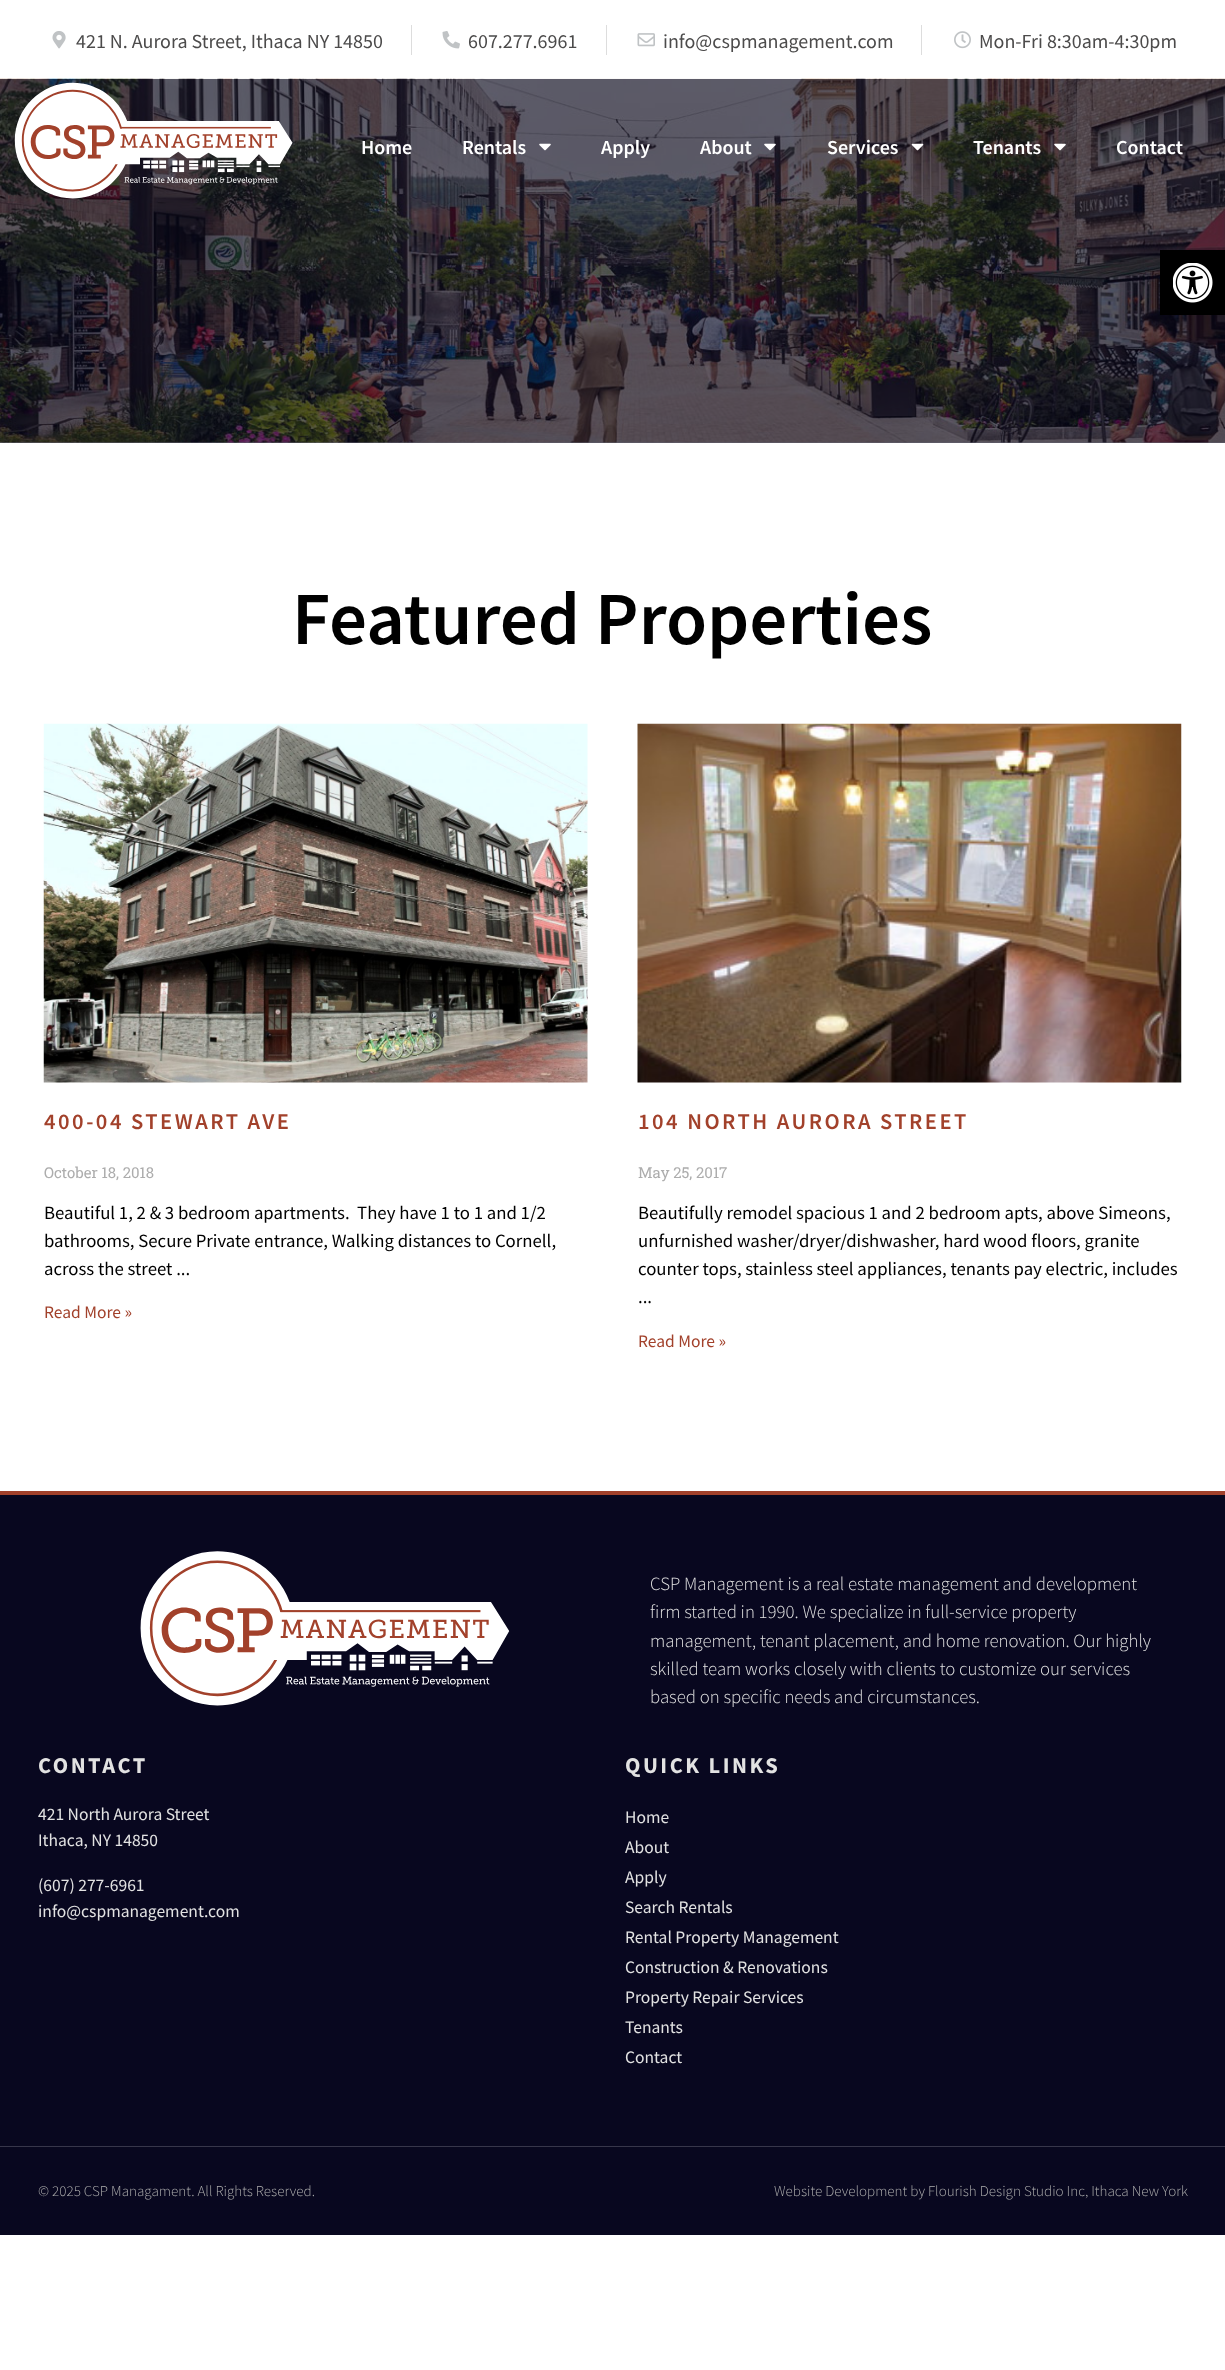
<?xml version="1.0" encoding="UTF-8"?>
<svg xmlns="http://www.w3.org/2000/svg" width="1225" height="2370">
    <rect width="100%" height="100%" fill="#FFFFFF"/>
    <rect x="0" y="442" width="1225" height="1" fill="#636371"/>
    <image x="52" y="31" width="14" height="18" href="img_01.png"/>
    <text x="76" y="48" font-family="Source Sans Pro" font-size="20" fill="#4C4B4B">421 N. Aurora Street, Ithaca NY 14850</text>
    <rect x="411" y="25" width="1" height="30" fill="#DDDDDD"/>
    <image x="442" y="31" width="18" height="18" href="img_02.png"/>
    <text x="468" y="48" font-family="Source Sans Pro" font-size="20" fill="#4C4B4B">607.277.6961</text>
    <rect x="606" y="25" width="1" height="30" fill="#DDDDDD"/>
    <image x="637" y="33" width="18" height="14" href="img_03.png"/>
    <text x="663" y="48" font-family="Source Sans Pro" font-size="20" fill="#4C4B4B">info@cspmanagement.com</text>
    <rect x="921" y="25" width="1" height="30" fill="#DDDDDD"/>
    <image x="954" y="31" width="17" height="18" href="img_04.png"/>
    <text x="979" y="48" font-family="Source Sans Pro" font-size="20" fill="#4C4B4B">Mon-Fri 8:30am-4:30pm</text>
    <image x="0" y="78" width="1225" height="365" href="img_05.png"/>
    <image x="14" y="82" width="279" height="117" href="img_06.png"/>
    <text x="361" y="154" font-family="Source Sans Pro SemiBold" font-size="20" font-weight="600" fill="#FFFFFF">Home</text>
    <text x="462" y="154" font-family="Source Sans Pro SemiBold" font-size="20" font-weight="600" fill="#FFFFFF">Rentals</text>
    <image x="539" y="143" width="12" height="8" href="img_07.png"/>
    <text x="601" y="154" font-family="Source Sans Pro SemiBold" font-size="20" font-weight="600" fill="#FFFFFF">Apply</text>
    <text x="700" y="154" font-family="Source Sans Pro SemiBold" font-size="20" font-weight="600" fill="#FFFFFF">About</text>
    <image x="764" y="143" width="12" height="8" href="img_08.png"/>
    <text x="827" y="154" font-family="Source Sans Pro SemiBold" font-size="20" font-weight="600" fill="#FFFFFF">Services</text>
    <image x="911" y="143" width="13" height="8" href="img_09.png"/>
    <text x="973" y="154" font-family="Source Sans Pro SemiBold" font-size="20" font-weight="600" fill="#FFFFFF">Tenants</text>
    <image x="1054" y="143" width="12" height="8" href="img_10.png"/>
    <text x="1116" y="154" font-family="Source Sans Pro SemiBold" font-size="20" font-weight="600" fill="#FFFFFF">Contact</text>
    <rect x="1160" y="250" width="65" height="65" fill="#000000"/>
    <image x="1173" y="263" width="40" height="40" href="img_11.png"/>
    <text x="292" y="644" font-family="Source Sans Pro SemiBold" font-size="75" font-weight="600" fill="#000000">Featured Properties</text>
    <image x="43" y="723" width="545" height="360" href="img_12.png"/>
    <text x="44" y="1129" font-family="Source Sans Pro SemiBold" font-size="22.5" font-weight="600" letter-spacing="2.5" fill="#A2412B">400-04 STEWART AVE</text>
    <text x="44" y="1178" font-family="Roboto Slab" font-size="15" fill="#ADADAD">October 18, 2018</text>
    <text font-family="Source Sans Pro" font-size="18.75" fill="#000000" xml:space="preserve"><tspan x="44" y="1219">Beautiful 1, 2 &amp; 3 bedroom apartments.  They have 1 to 1 and 1/2</tspan><tspan x="44" y="1247">bathrooms, Secure Private entrance, Walking distances to Cornell,</tspan><tspan x="44" y="1275">across the street ...</tspan></text>
    <text x="44" y="1318" font-family="Source Sans Pro" font-size="17.5" fill="#A2412B">Read More »</text>
    <image x="637" y="723" width="545" height="360" href="img_13.png"/>
    <text x="638" y="1129" font-family="Source Sans Pro SemiBold" font-size="22.5" font-weight="600" letter-spacing="2.5" fill="#A2412B">104 NORTH AURORA STREET</text>
    <text x="638" y="1178" font-family="Roboto Slab" font-size="15" fill="#ADADAD">May 25, 2017</text>
    <text font-family="Source Sans Pro" font-size="18.75" fill="#000000">
        <tspan x="638" y="1219">Beautifully remodel spacious 1 and 2 bedroom apts, above Simeons,</tspan>
        <tspan x="638" y="1247">unfurnished washer/dryer/dishwasher, hard wood floors, granite</tspan>
        <tspan x="638" y="1275">counter tops, stainless steel appliances, tenants pay electric, includes</tspan>
        <tspan x="638" y="1303">...</tspan>
    </text>
    <text x="638" y="1347" font-family="Source Sans Pro" font-size="17.5" fill="#A2412B">Read More »</text>
    <rect x="0" y="1495" width="1225" height="651" fill="#08071F"/>
    <rect x="0" y="1491" width="1225" height="4" fill="#A2412B"/>
    <image x="140" y="1551" width="370" height="155" href="img_14.png"/>
    <text font-family="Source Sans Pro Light" font-size="18.75" font-weight="300" fill="#E2E2E2">
        <tspan x="650" y="1590">CSP Management is a real estate management and development</tspan>
        <tspan x="650" y="1618">firm started in 1990. We specialize in full-service property</tspan>
        <tspan x="650" y="1647">management, tenant placement, and home renovation. Our highly</tspan>
        <tspan x="650" y="1675">skilled team works closely with clients to customize our services</tspan>
        <tspan x="650" y="1703">based on specific needs and circumstances.</tspan>
    </text>
    <text x="38" y="1773" font-family="Source Sans Pro" font-size="22.5" font-weight="700" letter-spacing="2.5" fill="#E2E2E2">CONTACT</text>
    <text font-family="Source Sans Pro" font-size="17.5" fill="#E2E2E2">
        <tspan x="38" y="1820">421 North Aurora Street</tspan>
        <tspan x="38" y="1846">Ithaca, NY 14850</tspan>
    </text>
    <text font-family="Source Sans Pro" font-size="17.5" fill="#E2E2E2">
        <tspan x="38" y="1891">(607) 277-6961</tspan>
        <tspan x="38" y="1917">info@cspmanagement.com</tspan>
    </text>
    <text x="625" y="1773" font-family="Source Sans Pro" font-size="22.5" font-weight="700" letter-spacing="2.5" fill="#E2E2E2">QUICK LINKS</text>
    <text font-family="Source Sans Pro" font-size="17.5" fill="#E2E2E2">
        <tspan x="625" y="1823">Home</tspan>
        <tspan x="625" y="1853">About</tspan>
        <tspan x="625" y="1883">Apply</tspan>
        <tspan x="625" y="1913">Search Rentals</tspan>
        <tspan x="625" y="1943">Rental Property Management</tspan>
        <tspan x="625" y="1973">Construction &amp; Renovations</tspan>
        <tspan x="625" y="2003">Property Repair Services</tspan>
        <tspan x="625" y="2033">Tenants</tspan>
        <tspan x="625" y="2063">Contact</tspan>
    </text>
    <rect x="0" y="2147" width="1225" height="88" fill="#08071F"/>
    <rect x="0" y="2146" width="1225" height="1" fill="#37364A"/>
    <text x="38" y="2196" font-family="Source Sans Pro Light" font-size="15" font-weight="300" fill="#ADADAD">© 2025 CSP Managament. All Rights Reserved.</text>
    <text x="774" y="2196" font-family="Source Sans Pro Light" font-size="15" font-weight="300" fill="#ADADAD">Website Development by Flourish Design Studio Inc, Ithaca New York</text>
</svg>
